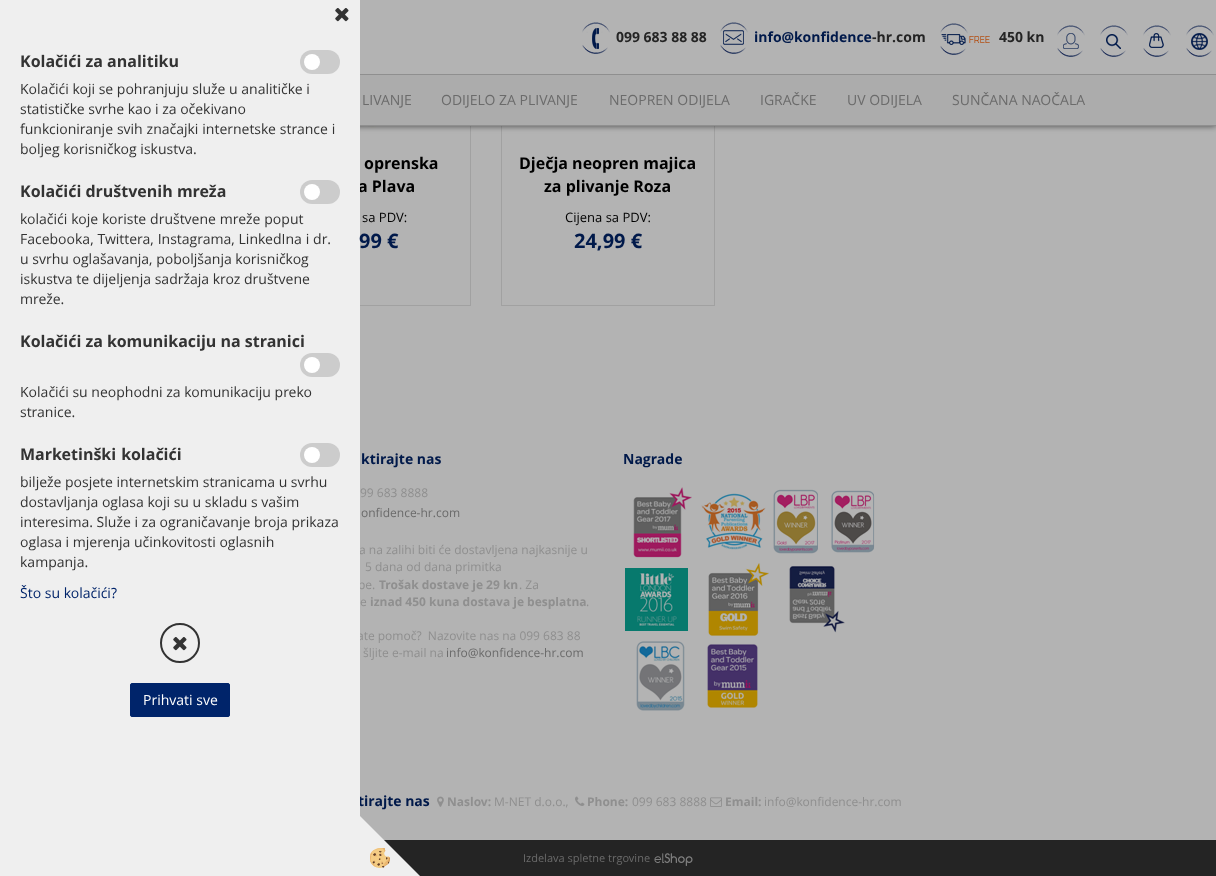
<?xml version="1.0" encoding="UTF-8"?>
<svg xmlns="http://www.w3.org/2000/svg" width="1216" height="876">
    <defs>
        <filter id="blur1" x="-50%" y="-200%" width="200%" height="500%"><feGaussianBlur stdDeviation="3"/></filter>
    </defs>
    <rect width="100%" height="100%" fill="#B3B3B3"/>
    <rect x="258.5" y="-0.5" width="212" height="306" fill="none" stroke="#A1A1A1"/>
    <image x="360" y="126" width="100" height="2" href="img_10.png"/>
    <rect x="501.5" y="-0.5" width="213" height="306" fill="none" stroke="#A1A1A1"/>
    <rect x="0" y="0" width="1216" height="126" fill="#000000" fill-opacity="0.6" filter="url(#blur1)"/>
    <text x="358" y="192" font-family="Open Sans" font-size="16" font-weight="700" fill="#000000">a Plava</text>
    <text x="359" y="554" font-family="Open Sans" font-size="12" fill="#8F8F8F">a na zalihi biti će dostavljena najkasnije u</text>
    <text x="358" y="589" font-family="Open Sans" font-size="12" fill="#8F8F8F">be.</text>
    <text x="357" y="640" font-family="Open Sans" font-size="12" fill="#8F8F8F" xml:space="preserve">ate pomoč?  Nazovite nas na 099 683 88</text>
    <text x="358" y="806" font-family="Open Sans" font-size="14" font-weight="700" fill="#00194A">tirajte nas</text>
    <rect x="0" y="0" width="360" height="876" fill="#EFEFEF"/>
    <image x="335" y="8" width="14" height="14" href="img_01.png"/>
    <text x="20" y="67" font-family="Open Sans" font-size="16" font-weight="700" fill="#333333">Kolačići za analitiku</text>
    <rect x="300" y="50" width="40" height="24" rx="12" fill="#CCCCCC"/>
    <circle cx="312" cy="62" r="8" fill="#FFFFFF"/>
    <text font-family="Open Sans" font-size="14" fill="#333333">
        <tspan x="20" y="94">Kolačići koji se pohranjuju služe u analitičke i</tspan>
        <tspan x="20" y="114">statističke svrhe kao i za očekivano</tspan>
        <tspan x="20" y="134" word-spacing="0.25">funkcioniranje svih značajki internetske strance i</tspan>
        <tspan x="20" y="154">boljeg korisničkog iskustva.</tspan>
    </text>
    <text x="20" y="197" font-family="Open Sans" font-size="16" font-weight="700" fill="#333333">Kolačići društvenih mreža</text>
    <rect x="300" y="180" width="40" height="24" rx="12" fill="#CCCCCC"/>
    <circle cx="312" cy="192" r="8" fill="#FFFFFF"/>
    <text font-family="Open Sans" font-size="14" fill="#333333">
        <tspan x="20" y="224" word-spacing="0.25">kolačići koje koriste društvene mreže poput</tspan>
        <tspan x="20" y="244" word-spacing="0.25">Facebooka, Twittera, Instagrama, LinkedIna i dr.</tspan>
        <tspan x="20" y="264">u svrhu oglašavanja, poboljšanja korisničkog</tspan>
        <tspan x="20" y="284">iskustva te dijeljenja sadržaja kroz društvene</tspan>
        <tspan x="20" y="304">mreže.</tspan>
    </text>
    <text x="20" y="347" font-family="Open Sans" font-size="16" font-weight="700" fill="#333333">Kolačići za komunikaciju na stranici</text>
    <rect x="300" y="353" width="40" height="24" rx="12" fill="#CCCCCC"/>
    <circle cx="312" cy="365" r="8" fill="#FFFFFF"/>
    <text font-family="Open Sans" font-size="14" fill="#333333">
        <tspan x="20" y="397">Kolačići su neophodni za komunikaciju preko</tspan>
        <tspan x="20" y="417">stranice.</tspan>
    </text>
    <text x="20" y="460" word-spacing="1" font-family="Open Sans" font-size="16" font-weight="700" fill="#333333">Marketinški kolačići</text>
    <rect x="300" y="443" width="40" height="24" rx="12" fill="#CCCCCC"/>
    <circle cx="312" cy="455" r="8" fill="#FFFFFF"/>
    <text font-family="Open Sans" font-size="14" fill="#333333">
        <tspan x="20" y="487">bilježe posjete internetskim stranicama u svrhu</tspan>
        <tspan x="20" y="507">dostavljanja oglasa koji su u skladu s vašim</tspan>
        <tspan x="20" y="527">interesima. Služe i za ograničavanje broja prikaza</tspan>
        <tspan x="20" y="547">oglasa i mjerenja učinkovitosti oglasnih</tspan>
        <tspan x="20" y="567">kampanja.</tspan>
    </text>
    <text x="20" y="598" font-family="Open Sans" font-size="14" fill="#00246A">Što su kolačići?</text>
    <circle cx="180" cy="643" r="19" fill="none" stroke="#333333" stroke-width="2"/>
    <image x="173" y="637" width="14" height="14" href="img_01.png"/>
    <rect x="130.5" y="683.5" width="99" height="33" rx="1.5" fill="#00246A" stroke="#00246A"/>
    <text x="143" y="705" font-family="Open Sans" font-size="14" fill="#FFFFFF">Prihvati sve</text>
    <rect x="384" y="840" width="832" height="36" fill="#242424"/>
    <path d="M 420 876 H 360 V 816 Z" fill="#EFEFEF"/>
    <image x="370" y="848" width="20" height="20" href="img_02.png"/>
    <rect x="360" y="0" width="856" height="74" fill="#B3B3B3"/>
    <image x="582" y="22" width="28" height="32" href="img_03.png"/>
    <text x="616" y="42" font-family="Open Sans" font-size="14" font-weight="700" fill="#242424">099 683 88 88</text>
    <image x="720" y="22" width="28" height="32" href="img_04.png"/>
    <text x="754" y="42" font-family="Open Sans" font-size="14" font-weight="700" fill="#00194A">info@konfidence</text>
    <text x="872" y="42" font-family="Open Sans" font-size="14" font-weight="700" fill="#242424">-hr.com</text>
    <image x="940" y="23" width="50" height="32" href="img_05.png"/>
    <text x="999" y="42" font-family="Open Sans" font-size="14" font-weight="700" fill="#242424">450 kn</text>
    <image x="1057" y="25" width="28" height="32" href="img_06.png"/>
    <image x="1100" y="25" width="28" height="32" href="img_07.png"/>
    <image x="1143" y="25" width="28" height="32" href="img_08.png"/>
    <image x="1186" y="25" width="28" height="32" href="img_09.png"/>
    <rect x="360" y="75" width="856" height="50" fill="#ACACAC"/>
    <rect x="360" y="74" width="856" height="1" fill="#8F8F8F"/>
    <rect x="360" y="125" width="856" height="1" fill="#8F8F8F"/>
    <text x="362" y="105" font-family="Open Sans" font-size="14" fill="#6B6B6B">LIVANJE</text>
    <text x="441" y="105" font-family="Open Sans" font-size="14" fill="#6B6B6B">ODIJELO ZA PLIVANJE</text>
    <text x="609" y="105" font-family="Open Sans" font-size="14" fill="#6B6B6B">NEOPREN ODIJELA</text>
    <text x="760" y="105" font-family="Open Sans" font-size="14" fill="#6B6B6B">IGRAČKE</text>
    <text x="847" y="105" font-family="Open Sans" font-size="14" fill="#6B6B6B">UV ODIJELA</text>
    <text x="952" y="105" font-family="Open Sans" font-size="14" fill="#6B6B6B">SUNČANA NAOČALA</text>
    <text x="364" y="169" font-family="Open Sans" font-size="16" font-weight="700" fill="#000000">oprenska</text>
    <text x="362" y="222" font-family="Open Sans" font-size="13" fill="#000000">sa PDV:</text>
    <text x="359" y="248" font-family="Open Sans" font-size="20" font-weight="700" fill="#00194A">99 €</text>
    <text x="519" y="169" font-family="Open Sans" font-size="16" font-weight="700" fill="#000000">Dječja neopren majica</text>
    <text x="544" y="192" font-family="Open Sans" font-size="16" font-weight="700" fill="#000000">za plivanje Roza</text>
    <text x="565" y="222" font-family="Open Sans" font-size="13" fill="#000000">Cijena sa PDV:</text>
    <text x="574" y="248" font-family="Open Sans" font-size="20" font-weight="700" fill="#00194A">24,99 €</text>
    <text x="361" y="464" font-family="Open Sans" font-size="14" font-weight="700" fill="#00194A">ktirajte nas</text>
    <text x="360" y="497" font-family="Open Sans" font-size="12" fill="#8F8F8F">99 683 8888</text>
    <text x="361" y="517" font-family="Open Sans" font-size="12" fill="#6B6B6B">onfidence-hr.com</text>
    <text x="365" y="571" font-family="Open Sans" font-size="12" fill="#8F8F8F">5 dana od dana primitka</text>
    <text x="379" y="589" font-family="Open Sans" font-size="12" font-weight="700" fill="#8F8F8F">Trošak dostave je 29 kn</text>
    <text x="519" y="589" font-family="Open Sans" font-size="12" fill="#8F8F8F">. Za</text>
    <text x="360" y="606" font-family="Open Sans" font-size="12" fill="#8F8F8F">e</text>
    <text x="370" y="606" font-family="Open Sans" font-size="12" font-weight="700" fill="#8F8F8F">iznad 450 kuna dostava je besplatna</text>
    <text x="586" y="606" font-family="Open Sans" font-size="12" fill="#8F8F8F">.</text>
    <text x="363" y="657" font-family="Open Sans" font-size="12" fill="#8F8F8F">šljite e-mail na</text>
    <text x="446" y="657" font-family="Open Sans" font-size="12" fill="#6B6B6B">info@konfidence-hr.com</text>
    <text x="623" y="464" font-family="Open Sans" font-size="14" font-weight="700" fill="#00194A">Nagrade</text>
    <image x="633" y="487" width="59" height="71" href="img_11.png"/>
    <image x="701" y="493" width="65" height="57" href="img_12.png"/>
    <image x="773" y="489" width="45" height="65" href="img_13.png"/>
    <image x="831" y="490" width="44" height="63" href="img_14.png"/>
    <image x="625" y="568" width="63" height="63" href="img_15.png"/>
    <image x="708" y="563" width="61" height="73" href="img_16.png"/>
    <image x="789" y="566" width="56" height="67" href="img_17.png"/>
    <image x="636" y="641" width="49" height="70" href="img_18.png"/>
    <image x="707" y="644" width="51" height="64" href="img_19.png"/>
    <image x="437" y="796" width="7" height="11" href="img_20.png"/>
    <text x="447" y="806" font-family="Open Sans" font-size="12" font-weight="700" fill="#8F8F8F">Naslov:</text>
    <text x="494" y="806" font-family="Open Sans" font-size="12" fill="#8F8F8F">M-NET d.o.o.,</text>
    <image x="575" y="796" width="10" height="10" href="img_21.png"/>
    <text x="587" y="806" font-family="Open Sans" font-size="12" font-weight="700" fill="#8F8F8F">Phone:</text>
    <text x="632" y="806" font-family="Open Sans" font-size="12" fill="#8F8F8F">099 683 8888</text>
    <image x="710" y="797" width="12" height="10" href="img_22.png"/>
    <text x="725" y="806" font-family="Open Sans" font-size="12" font-weight="700" fill="#8F8F8F">Email:</text>
    <text x="764" y="806" font-family="Open Sans" font-size="12" fill="#8F8F8F">info@konfidence-hr.com</text>
    <text x="523" y="862" font-family="Open Sans" font-size="11" fill="#6B6B6B">Izdelava spletne trgovine</text>
    <image x="654" y="853" width="39" height="13" href="img_23.png"/>
</svg>
